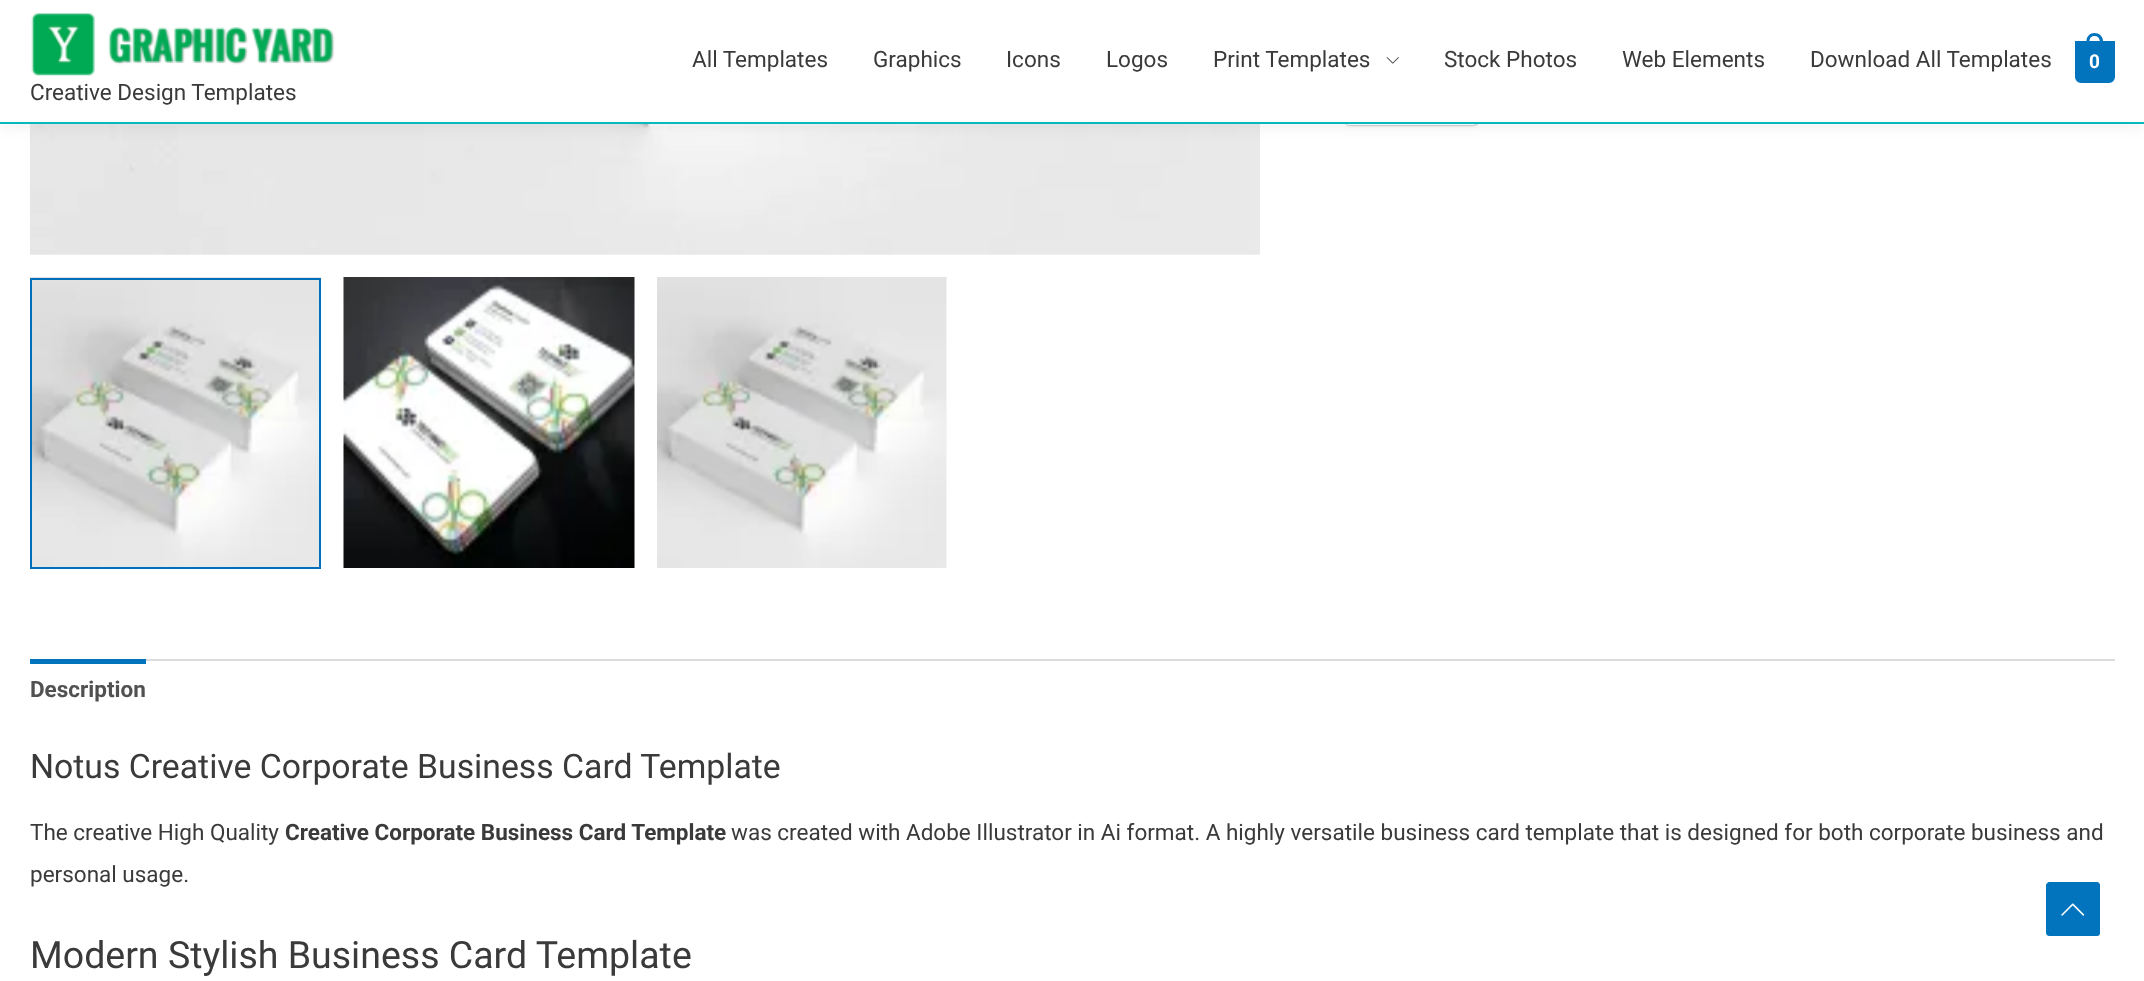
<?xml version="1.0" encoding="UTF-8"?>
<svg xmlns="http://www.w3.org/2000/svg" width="2144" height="981">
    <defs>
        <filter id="blur1" x="-50%" y="-200%" width="200%" height="500%"><feGaussianBlur stdDeviation="1.5"/></filter>
        <filter id="blur2" x="-50%" y="-200%" width="200%" height="500%"><feGaussianBlur stdDeviation="7.5"/></filter>
    </defs>
    <rect width="100%" height="100%" fill="#FFFFFF"/>
    <rect x="1344" y="79" width="136" height="46" rx="7" fill="none" stroke="#E0E0E0" stroke-width="2"/>
    <rect x="1344" y="81" width="135" height="45" rx="6" fill="#000000" fill-opacity="0.12" filter="url(#blur1)"/>
    <rect x="1344" y="80" width="135" height="45" rx="6" fill="#FFFFFF"/>
    <image x="30" y="124" width="1230" height="131" href="img_03.png"/>
    <rect x="0" y="3" width="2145" height="123" fill="#243242" fill-opacity="0.07" filter="url(#blur2)"/>
    <rect x="0" y="0" width="2144" height="122" fill="#FFFFFF"/>
    <rect x="0" y="122" width="2144" height="2" fill="#05B9BC"/>
    <text x="692" y="67" font-family="Roboto" font-size="22.5" fill="#3A3A3A">All Templates</text>
    <text x="873" y="67" font-family="Roboto" font-size="22.5" fill="#3A3A3A">Graphics</text>
    <text x="1006" y="67" font-family="Roboto" font-size="22.5" fill="#3A3A3A">Icons</text>
    <text x="1106" y="67" font-family="Roboto" font-size="22.5" fill="#3A3A3A">Logos</text>
    <text x="1213" y="67" font-family="Roboto" font-size="22.5" fill="#3A3A3A">Print Templates</text>
    <image x="1386" y="57" width="13" height="7" href="img_01.png"/>
    <text x="1444" y="67" font-family="Roboto" font-size="22.5" fill="#3A3A3A">Stock Photos</text>
    <text x="1622" y="67" font-family="Roboto" font-size="22.5" fill="#3A3A3A">Web Elements</text>
    <text x="1810" y="67" font-family="Roboto" font-size="22.5" fill="#3A3A3A">Download All Templates</text>
    <path d="M 2076.5 42.5 H 2113.5 V 77 C 2113.5 79.5 2111.5 81.5 2109 81.5 H 2081 C 2078.5 81.5 2076.5 79.5 2076.5 77 Z" fill="#0274BE" stroke="#0274BE" stroke-width="3"/>
    <path d="M 2094.5 33 C 2099 33 2103 36.5 2103 41 V 48 H 2086.5 V 41 C 2086.5 36.5 2090 33 2094.5 33 Z M 2094.5 36 C 2101 36 2100 43.5 2100 48 H 2089.5 C 2089.5 43.5 2088 36 2094.5 36 Z" fill="#0274BE" fill-rule="evenodd"/>
    <text x="2089" y="68" font-family="Roboto" font-size="19" font-weight="700" fill="#FFFFFF">0</text>
    <image x="31" y="13" width="304" height="63" href="img_02.png"/>
    <text x="30" y="100" font-family="Roboto" font-size="22.5" fill="#3A3A3A">Creative Design Templates</text>
    <image x="30" y="277" width="291" height="290" href="img_04.png"/>
    <rect x="31" y="279" width="289" height="289" fill="none" stroke="#0170B9" stroke-width="2"/>
    <image x="343" y="277" width="292" height="291" href="img_05.png"/>
    <image x="657" y="277" width="290" height="291" href="img_06.png"/>
    <rect x="146" y="659" width="1969" height="2" fill="#DDDDDD"/>
    <rect x="30" y="659" width="116" height="5" fill="#0274BE"/>
    <text x="30" y="697" font-family="Roboto" font-size="22.5" font-weight="700" fill="#515151">Description</text>
    <text x="30" y="778" font-family="Roboto" font-size="33.75" fill="#3A3A3A">Notus Creative Corporate Business Card Template</text>
    <text x="30" y="840" font-family="Roboto" font-size="22.5" fill="#3A3A3A">The creative High Quality</text>
    <text x="285" y="840" font-family="Roboto" font-size="22.5" font-weight="700" fill="#3A3A3A">Creative Corporate Business Card Template</text>
    <text x="731" y="840" font-family="Roboto" font-size="22.5" fill="#3A3A3A">was created with Adobe Illustrator in Ai format. A highly versatile business card template that is designed for both corporate business and</text>
    <text x="30" y="882" font-family="Roboto" font-size="22.5" fill="#3A3A3A">personal usage.</text>
    <text x="30" y="968" font-family="Roboto" font-size="37.5" fill="#3A3A3A">Modern Stylish Business Card Template</text>
    <path d="M 2097 936 H 2049 C 2048 936 2046 935 2046 933 V 885 C 2046 884 2048 882 2049 882 H 2097 C 2099 882 2100 884 2100 885 V 933 C 2100 935 2099 936 2097 936 Z" fill="#0274BE"/>
    <image x="2061" y="903" width="24" height="13" href="img_07.png"/>
</svg>
